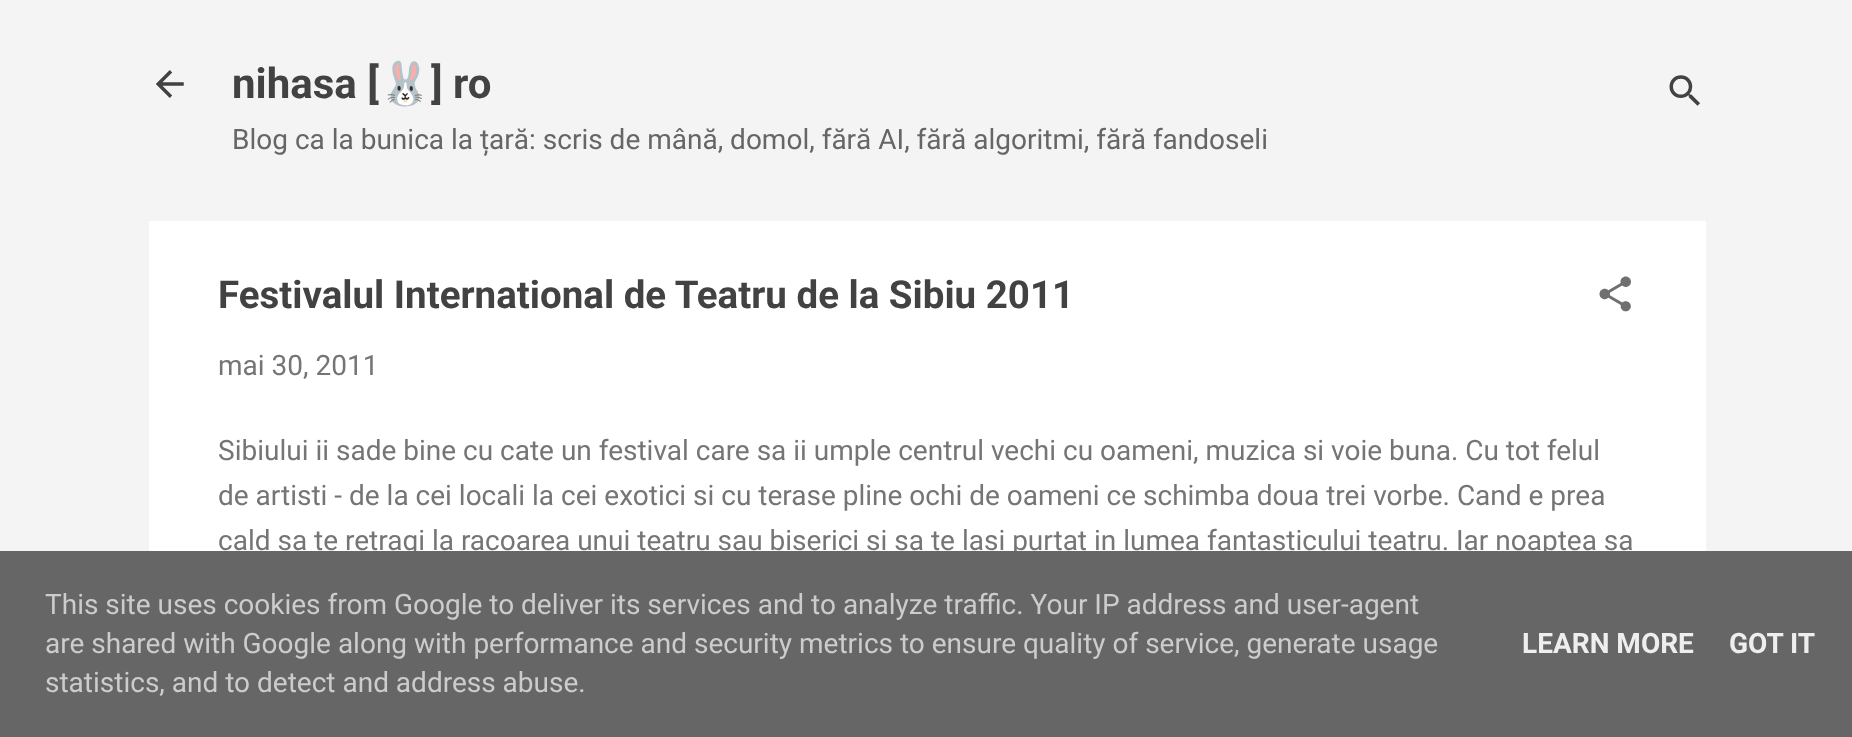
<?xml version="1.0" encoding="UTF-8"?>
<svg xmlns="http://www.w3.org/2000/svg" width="1852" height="737">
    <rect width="100%" height="100%" fill="#F4F4F4"/>
    <image x="156" y="70" width="28" height="28" href="img_01.png"/>
    <text x="232" y="98" font-family="Roboto" font-size="42" font-weight="700" fill="#424242">nihasa [</text>
    <text x="379" y="98" font-family="Noto Color Emoji" font-size="42" font-weight="700" fill="#424242">🐰</text>
    <text x="431" y="98" font-family="Roboto" font-size="42" font-weight="700" fill="#424242">] ro</text>
    <text x="232" y="149" font-family="Roboto" font-size="28" fill="#666666">Blog ca la bunica la țară: scris de mână, domol, fără AI, fără algoritmi, fără fandoseli</text>
    <image x="1669" y="75" width="31" height="31" href="img_02.png"/>
    <rect x="149" y="221" width="1557" height="330" fill="#FFFFFF"/>
    <text x="218" y="308" font-family="Roboto" font-size="38.5" font-weight="700" fill="#424242">Festivalul International de Teatru de la Sibiu 2011</text>
    <image x="1599" y="276" width="32" height="36" href="img_03.png"/>
    <text x="218" y="375" font-family="Roboto" font-size="28" fill="#757575">mai 30, 2011</text>
    <text font-family="Roboto" font-size="28" fill="#757575">
        <tspan x="218" y="460">Sibiului ii sade bine cu cate un festival care sa ii umple centrul vechi cu oameni, muzica si voie buna. Cu tot felul</tspan>
        <tspan x="218" y="505">de artisti - de la cei locali la cei exotici si cu terase pline ochi de oameni ce schimba doua trei vorbe. Cand e prea</tspan>
        <tspan x="218" y="550">cald sa te retragi la racoarea unui teatru sau biserici si sa te lasi purtat in lumea fantasticului teatru. Iar noaptea sa</tspan>
    </text>
    <rect x="0" y="551" width="1852" height="186" fill="#666666"/>
    <text font-family="Roboto" font-size="28" fill="#CCCCCC">
        <tspan x="45" y="614">This site uses cookies from Google to deliver its services and to analyze traffic. Your IP address and user-agent</tspan>
        <tspan x="45" y="653">are shared with Google along with performance and security metrics to ensure quality of service, generate usage</tspan>
        <tspan x="45" y="692">statistics, and to detect and address abuse.</tspan>
    </text>
    <text x="1522" y="653" font-family="Roboto" font-size="28" font-weight="700" fill="#EEEEEE">LEARN MORE</text>
    <text x="1729" y="653" font-family="Roboto" font-size="28" font-weight="700" fill="#EEEEEE">GOT IT</text>
</svg>
